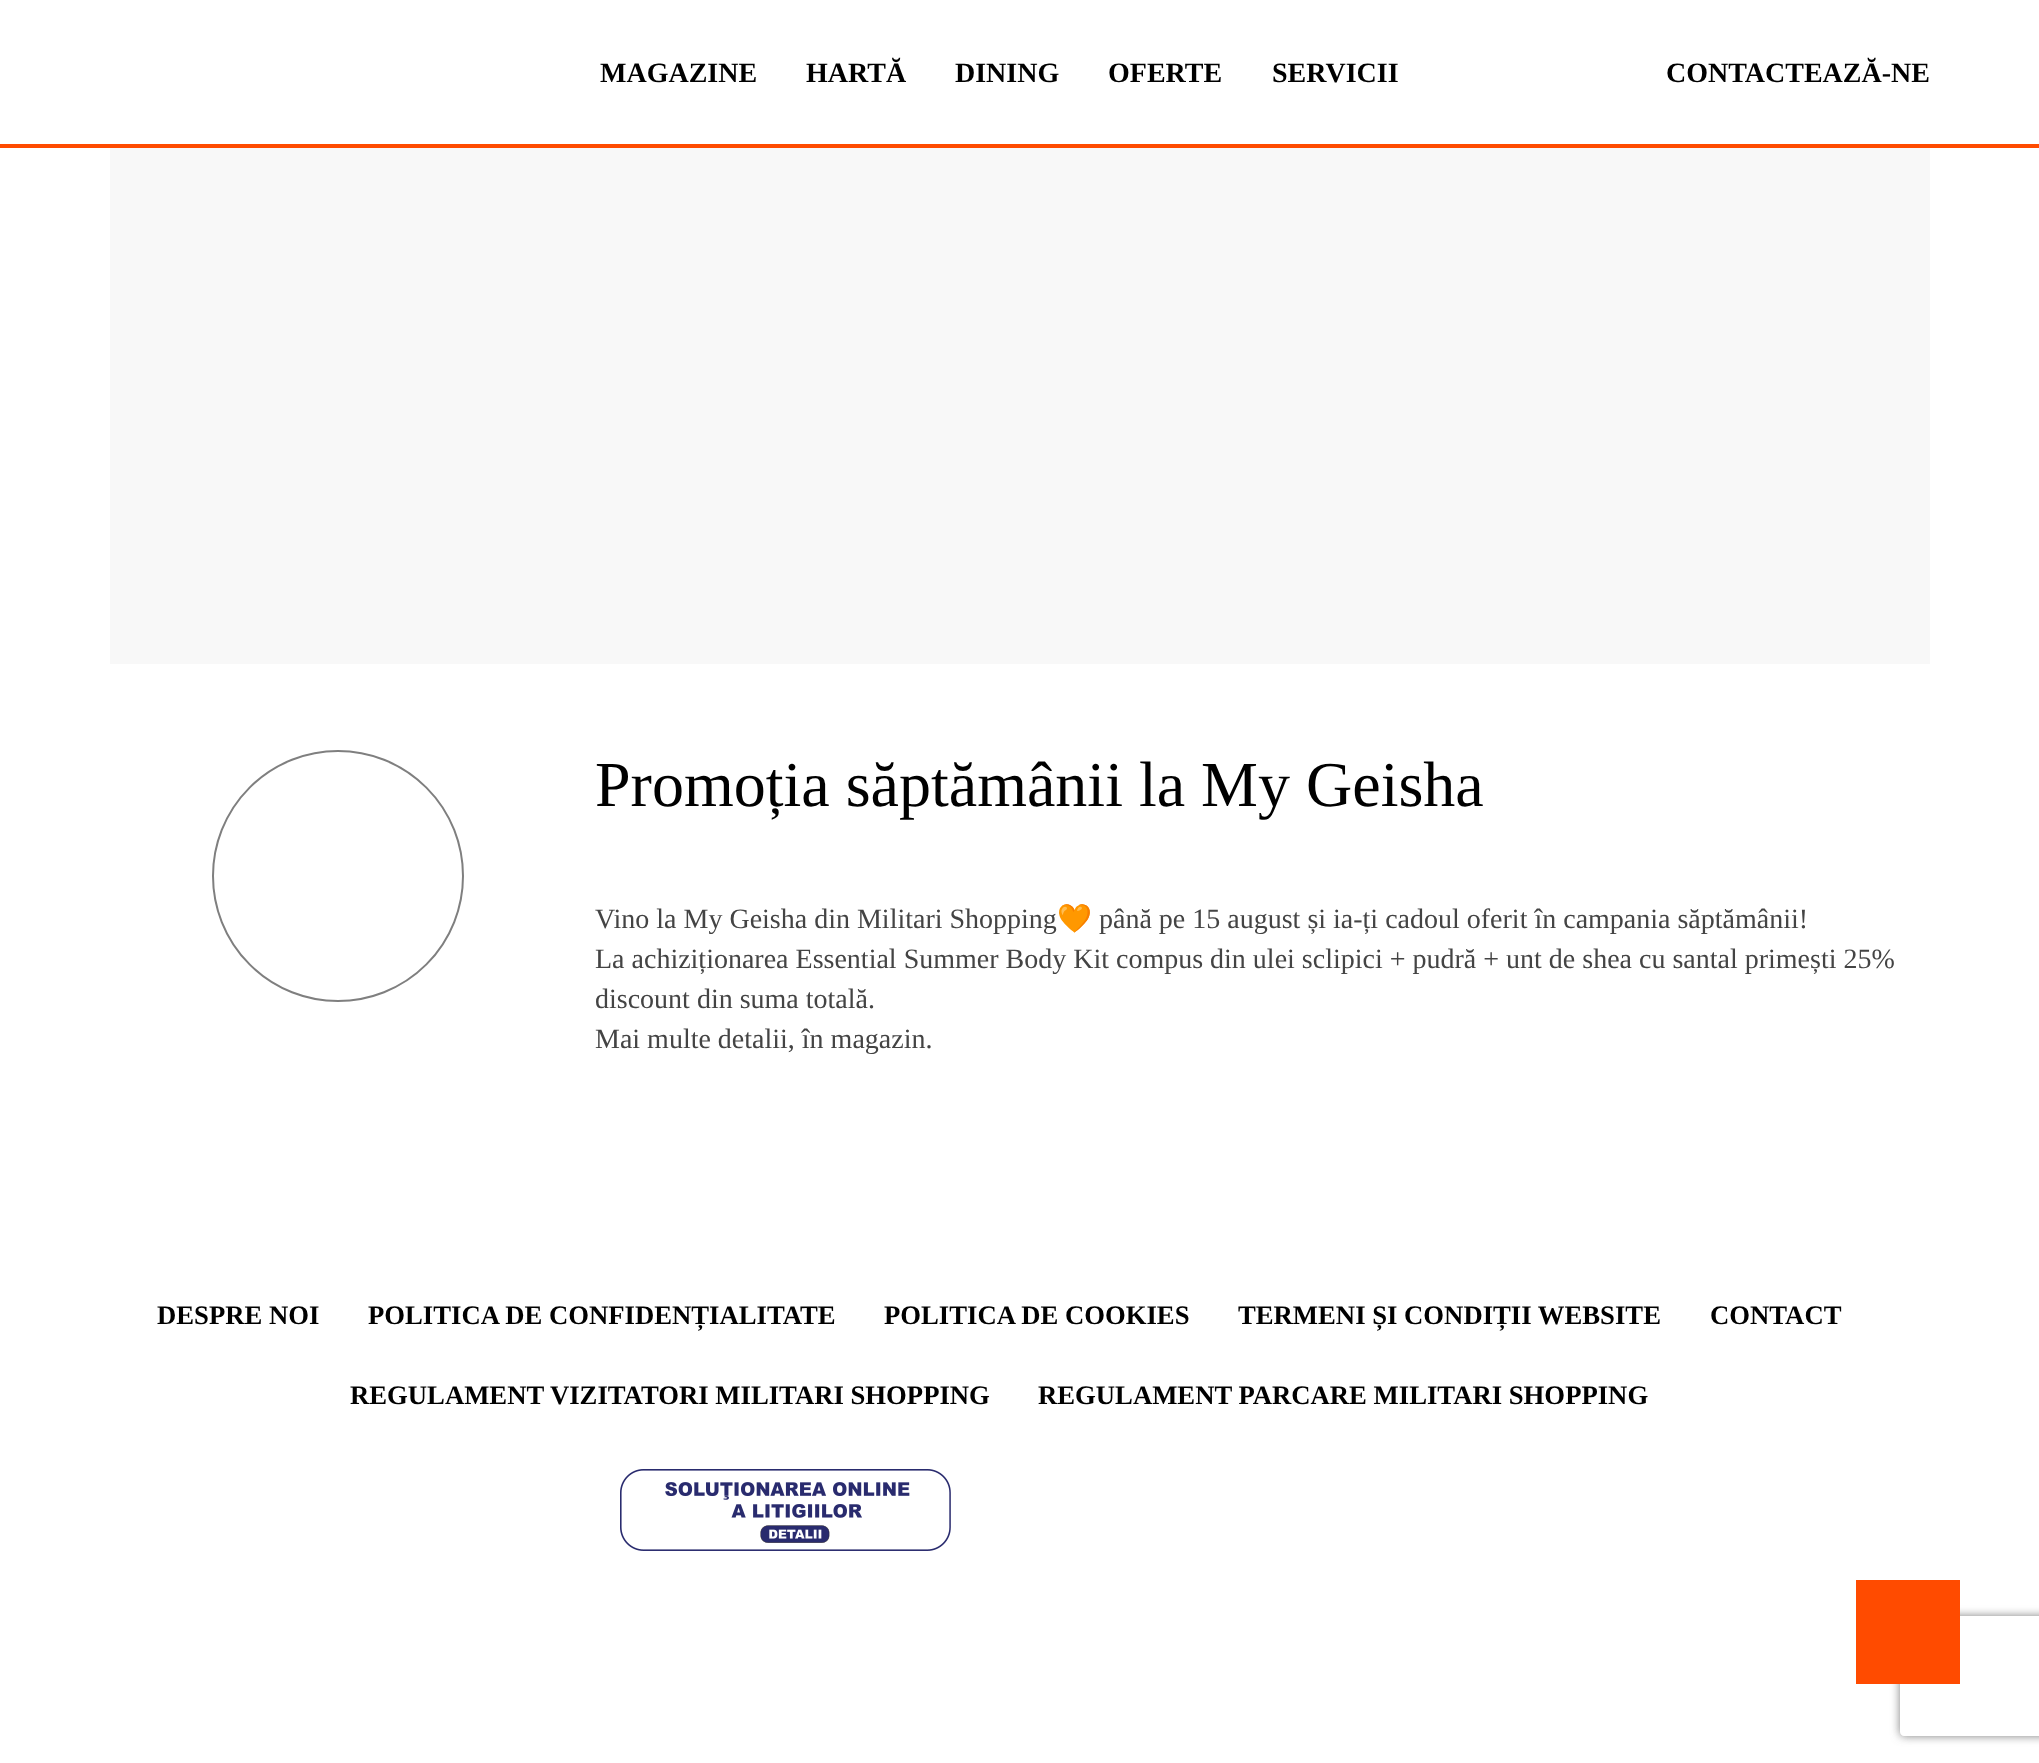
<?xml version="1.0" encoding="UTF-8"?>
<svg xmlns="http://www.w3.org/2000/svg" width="2039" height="1763">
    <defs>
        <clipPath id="clip1"><path d="M 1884 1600 H 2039 V 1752 H 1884 Z M 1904 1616 H 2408 C 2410 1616 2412 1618 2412 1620 V 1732 C 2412 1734 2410 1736 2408 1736 H 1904 C 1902 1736 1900 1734 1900 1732 V 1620 C 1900 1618 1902 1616 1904 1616 Z" clip-rule="evenodd"/></clipPath>
        <filter id="blur1" x="-50%" y="-200%" width="200%" height="500%"><feGaussianBlur stdDeviation="5"/></filter>
    </defs>
    <rect width="100%" height="100%" fill="#FFFFFF"/>
    <rect x="0" y="144" width="2039" height="4" fill="#FF4B00"/>
    <text x="600" y="82" font-family="Liberation Serif" font-size="28" font-weight="700" fill="#000000">MAGAZINE</text>
    <text x="806" y="82" font-family="Liberation Serif" font-size="28" font-weight="700" fill="#000000">HARTĂ</text>
    <text x="955" y="82" font-family="Liberation Serif" font-size="28" font-weight="700" fill="#000000">DINING</text>
    <text x="1108" y="82" font-family="Liberation Serif" font-size="28" font-weight="700" fill="#000000">OFERTE</text>
    <text x="1272" y="82" font-family="Liberation Serif" font-size="28" font-weight="700" fill="#000000">SERVICII</text>
    <text x="1666" y="82" font-family="Liberation Serif" font-size="28" font-weight="700" fill="#000000">CONTACTEAZĂ-NE</text>
    <rect x="110" y="148" width="1820" height="516" fill="#F8F8F8"/>
    <circle cx="338" cy="876" r="125" fill="none" stroke="#7F7F7F" stroke-width="2"/>
    <text x="595" y="806" font-family="Liberation Serif" font-size="64" fill="#000000">Promoția săptămânii la My Geisha</text>
    <text x="595" y="928" font-family="Liberation Serif" font-size="28" fill="#444444">Vino la My Geisha din Militari Shopping</text>
    <text x="1057" y="928" font-family="Noto Color Emoji" font-size="28" fill="#444444">🧡</text>
    <text x="1099" y="928" font-family="Liberation Serif" font-size="28" fill="#444444">până pe 15 august și ia-ți cadoul oferit în campania săptămânii!</text>
    <text font-family="Liberation Serif" font-size="28" fill="#444444">
        <tspan x="595" y="968">La achiziționarea Essential Summer Body Kit compus din ulei sclipici + pudră + unt de shea cu santal primești 25%</tspan>
        <tspan x="595" y="1008">discount din suma totală.</tspan>
        <tspan x="595" y="1048">Mai multe detalii, în magazin.</tspan>
    </text>
    <text x="157" y="1324" font-family="Liberation Serif" font-size="26.7" font-weight="700" fill="#000000">DESPRE NOI</text>
    <text x="368" y="1324" font-family="Liberation Serif" font-size="26.7" font-weight="700" fill="#000000">POLITICA DE CONFIDENȚIALITATE</text>
    <text x="884" y="1324" font-family="Liberation Serif" font-size="26.7" font-weight="700" fill="#000000">POLITICA DE COOKIES</text>
    <text x="1238" y="1324" font-family="Liberation Serif" font-size="26.7" font-weight="700" fill="#000000">TERMENI ȘI CONDIȚII WEBSITE</text>
    <text x="1710" y="1324" font-family="Liberation Serif" font-size="26.7" font-weight="700" fill="#000000">CONTACT</text>
    <text x="350" y="1404" font-family="Liberation Serif" font-size="26.7" font-weight="700" fill="#000000">REGULAMENT VIZITATORI MILITARI SHOPPING</text>
    <text x="1038" y="1404" font-family="Liberation Serif" font-size="26.7" font-weight="700" fill="#000000">REGULAMENT PARCARE MILITARI SHOPPING</text>
    <image x="620" y="1469" width="331" height="82" href="img_01.png"/>
    <g clip-path="url(#clip1)">
        <rect x="1900" y="1616" width="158" height="120" rx="4" fill="#808080" filter="url(#blur1)"/>
    </g>
    <rect x="1856" y="1580" width="104" height="104" fill="#FF4B00"/>
</svg>
